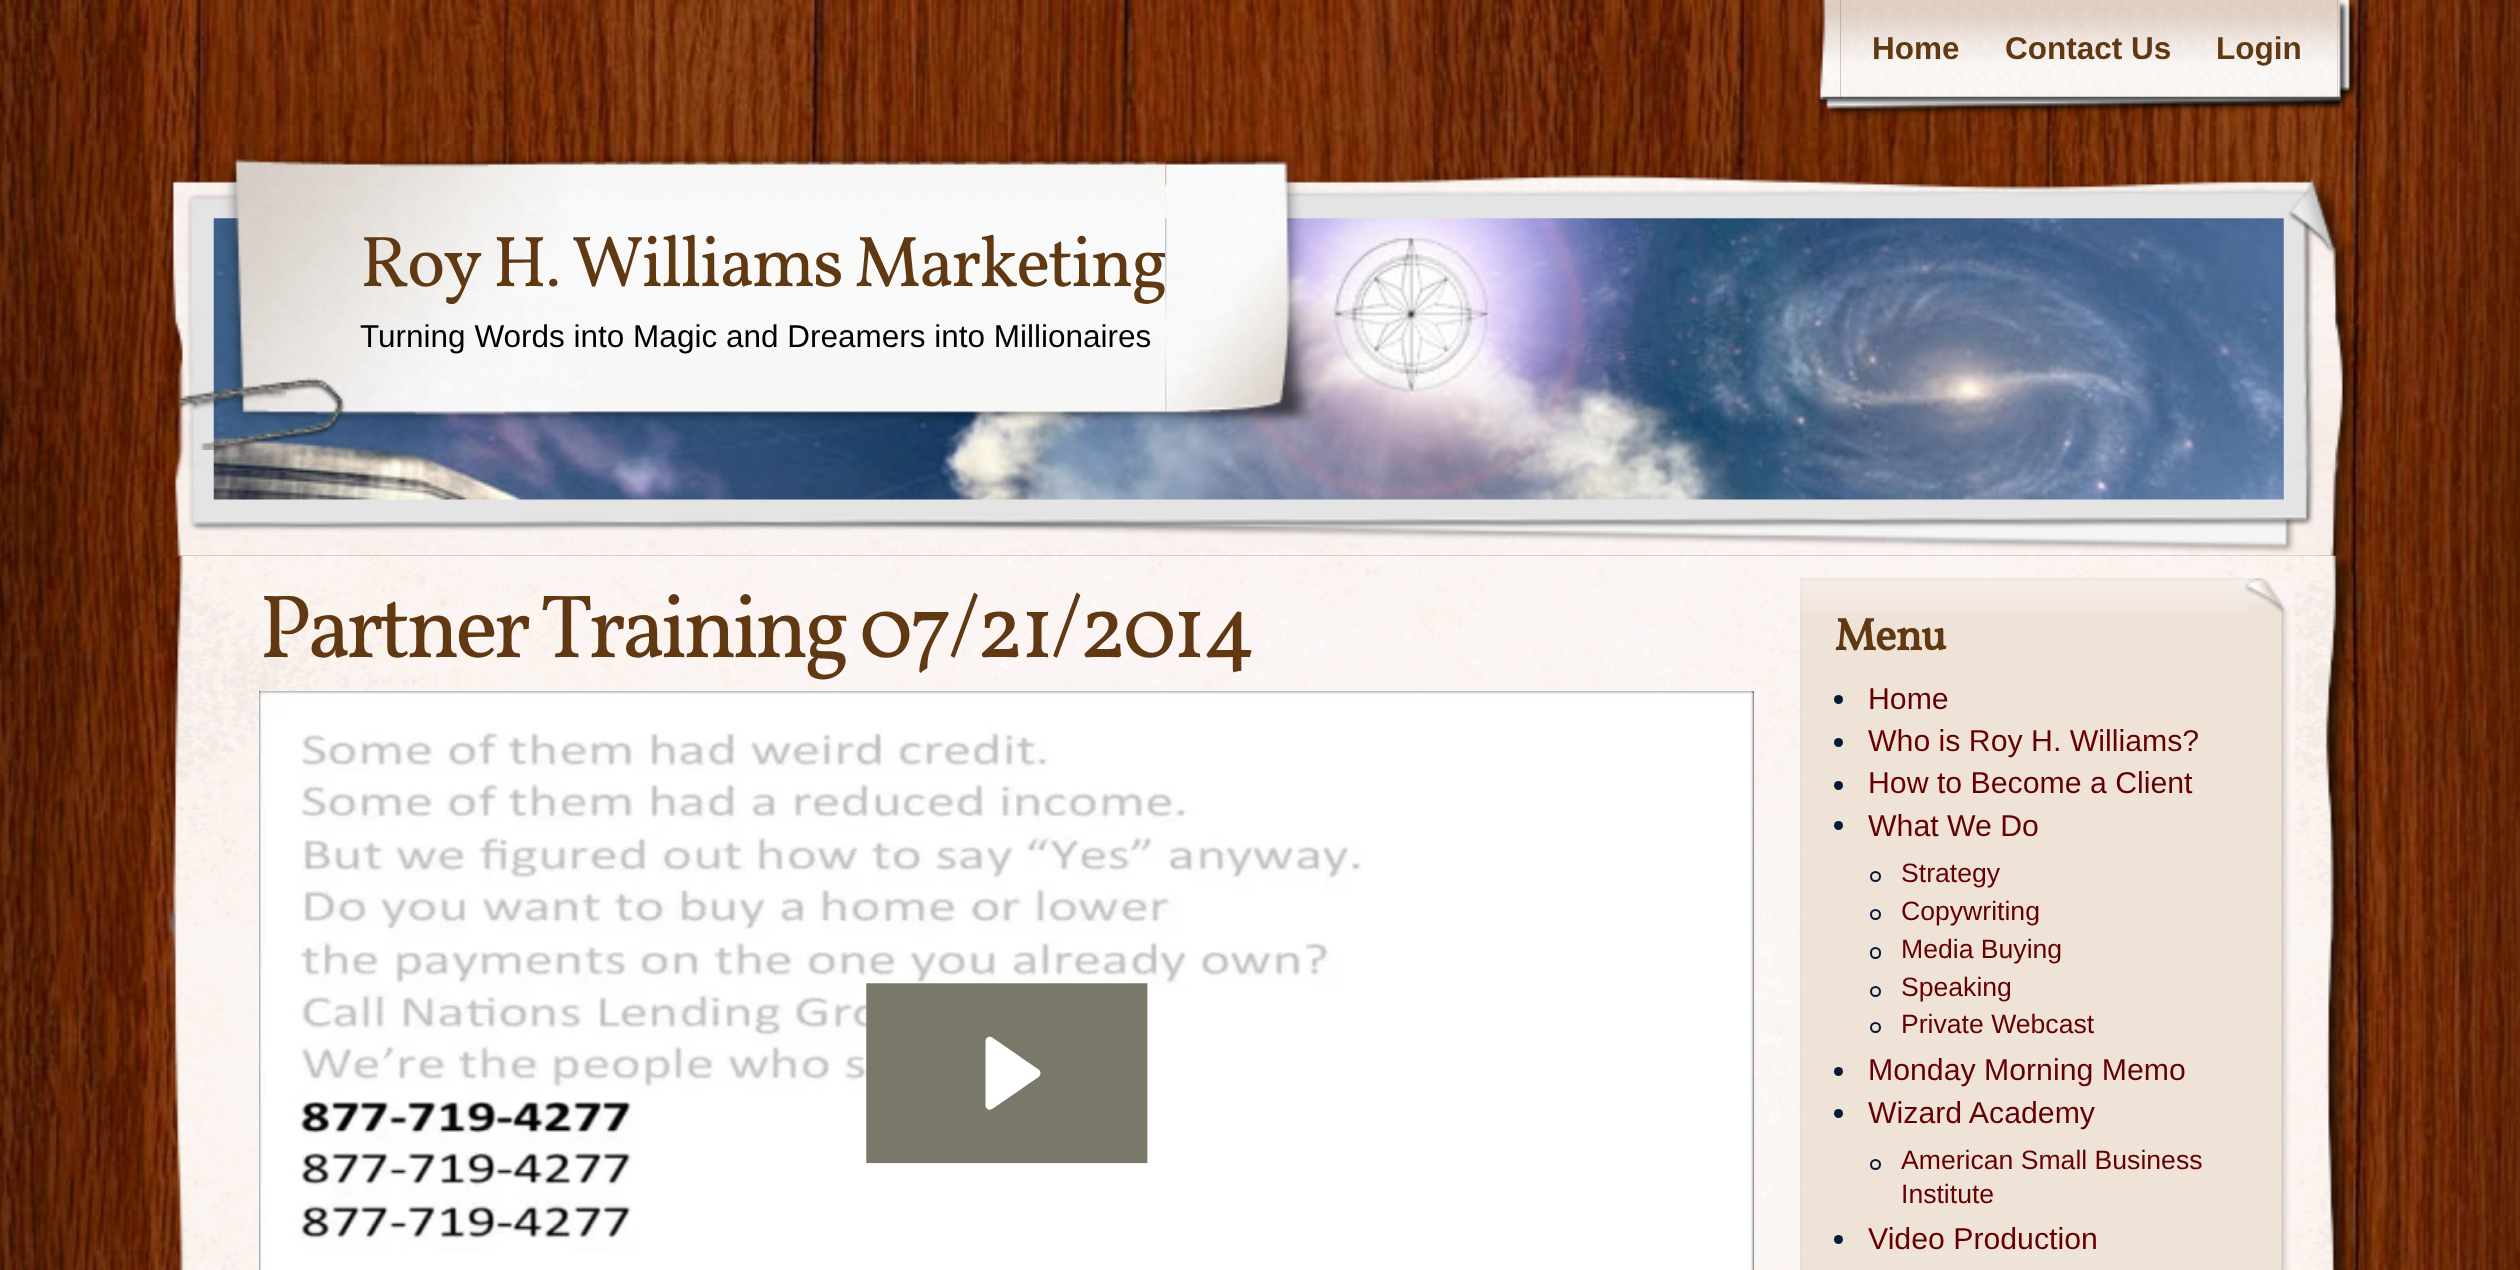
<?xml version="1.0" encoding="UTF-8"?>
<svg xmlns="http://www.w3.org/2000/svg" width="2520" height="1270">
    <rect width="100%" height="100%" fill="#FFFFFF"/>
    <image x="0" y="0" width="2520" height="1270" href="img_01.png"/>
    <image x="0" y="0" width="2520" height="1270" href="img_02.png"/>
    <image x="1819" y="0" width="22" height="100" href="img_03.png"/>
    <image x="2337" y="0" width="21" height="108" href="img_04.png"/>
    <image x="1840" y="0" width="498" height="108" href="img_05.png"/>
    <text x="1872" y="59" font-family="Liberation Sans" font-size="31.5" font-weight="700" fill="#603913">Home</text>
    <text x="2005" y="59" font-family="Liberation Sans" font-size="31.5" font-weight="700" fill="#603913">Contact Us</text>
    <text x="2216" y="59" font-family="Liberation Sans" font-size="31.5" font-weight="700" fill="#603913">Login</text>
    <image x="1816" y="96" width="524" height="21" href="img_06.png"/>
    <image x="168" y="173" width="2193" height="383" href="img_07.png"/>
    <image x="213" y="218" width="2071" height="282" href="img_08.png"/>
    <image x="1165" y="152" width="150" height="273" href="img_09.png"/>
    <image x="180" y="155" width="986" height="295" href="img_10.png"/>
    <text x="360" y="286" font-family="Vollkorn" font-size="72" letter-spacing="-2.25" fill="#603913">Roy H. Williams Marketing</text>
    <text x="360" y="347" font-family="Liberation Sans" font-size="31.5" fill="#000000">Turning Words into Magic and Dreamers into Millionaires</text>
    <image x="165" y="555" width="2193" height="715" href="img_11.png"/>
    <text x="259" y="657" font-family="Vollkorn" font-size="90" letter-spacing="-4.5" fill="#603913">Partner Training 07/21/2014</text>
    <image x="259" y="691" width="1496" height="579" href="img_12.png"/>
    <image x="1800" y="578" width="495" height="692" href="img_13.png"/>
    <text x="1834" y="650" font-family="Vollkorn" font-size="45" font-weight="700" letter-spacing="-1" fill="#603913">Menu</text>
    <circle cx="1838.5" cy="699.5" r="4.5" fill="#041A36"/>
    <text x="1868" y="709" font-family="Liberation Sans" font-size="30.25" fill="#660000">Home</text>
    <circle cx="1838.5" cy="742.5" r="4.5" fill="#041A36"/>
    <text x="1868" y="751" font-family="Liberation Sans" font-size="30.25" fill="#660000">Who is Roy H. Williams?</text>
    <circle cx="1838.5" cy="785.5" r="4.5" fill="#041A36"/>
    <text x="1868" y="793" font-family="Liberation Sans" font-size="30.25" fill="#660000">How to Become a Client</text>
    <circle cx="1838.5" cy="825.5" r="4.5" fill="#041A36"/>
    <text x="1868" y="836" font-family="Liberation Sans" font-size="30.25" fill="#660000">What We Do</text>
    <circle cx="1875.5" cy="876.5" r="4.5" fill="none" stroke="#041A36" stroke-width="2"/>
    <text x="1901" y="882" font-family="Liberation Sans" font-size="26.6" fill="#660000">Strategy</text>
    <circle cx="1875.5" cy="914.5" r="4.5" fill="none" stroke="#041A36" stroke-width="2"/>
    <text x="1901" y="920" font-family="Liberation Sans" font-size="26.6" fill="#660000">Copywriting</text>
    <rect x="1871" y="948" width="9" height="10" rx="4.5" fill="none" stroke="#041A36" stroke-width="2"/>
    <text x="1901" y="958" font-family="Liberation Sans" font-size="26.6" fill="#660000">Media Buying</text>
    <circle cx="1875.5" cy="991.5" r="4.5" fill="none" stroke="#041A36" stroke-width="2"/>
    <text x="1901" y="996" font-family="Liberation Sans" font-size="26.6" fill="#660000">Speaking</text>
    <circle cx="1875.5" cy="1027.5" r="4.5" fill="none" stroke="#041A36" stroke-width="2"/>
    <text x="1901" y="1033" font-family="Liberation Sans" font-size="26.6" fill="#660000">Private Webcast</text>
    <circle cx="1838.5" cy="1071.5" r="4.5" fill="#041A36"/>
    <text x="1868" y="1080" font-family="Liberation Sans" font-size="30.25" fill="#660000">Monday Morning Memo</text>
    <circle cx="1838.5" cy="1113.5" r="4.5" fill="#041A36"/>
    <text x="1868" y="1123" font-family="Liberation Sans" font-size="30.25" fill="#660000">Wizard Academy</text>
    <circle cx="1875.5" cy="1164.5" r="4.5" fill="none" stroke="#041A36" stroke-width="2"/>
    <text font-family="Liberation Sans" font-size="26.6" fill="#660000">
        <tspan x="1901" y="1169">American Small Business</tspan>
        <tspan x="1901" y="1203">Institute</tspan>
    </text>
    <circle cx="1838.5" cy="1239.5" r="4.5" fill="#041A36"/>
    <text x="1868" y="1249" font-family="Liberation Sans" font-size="30.25" fill="#660000">Video Production</text>
</svg>
